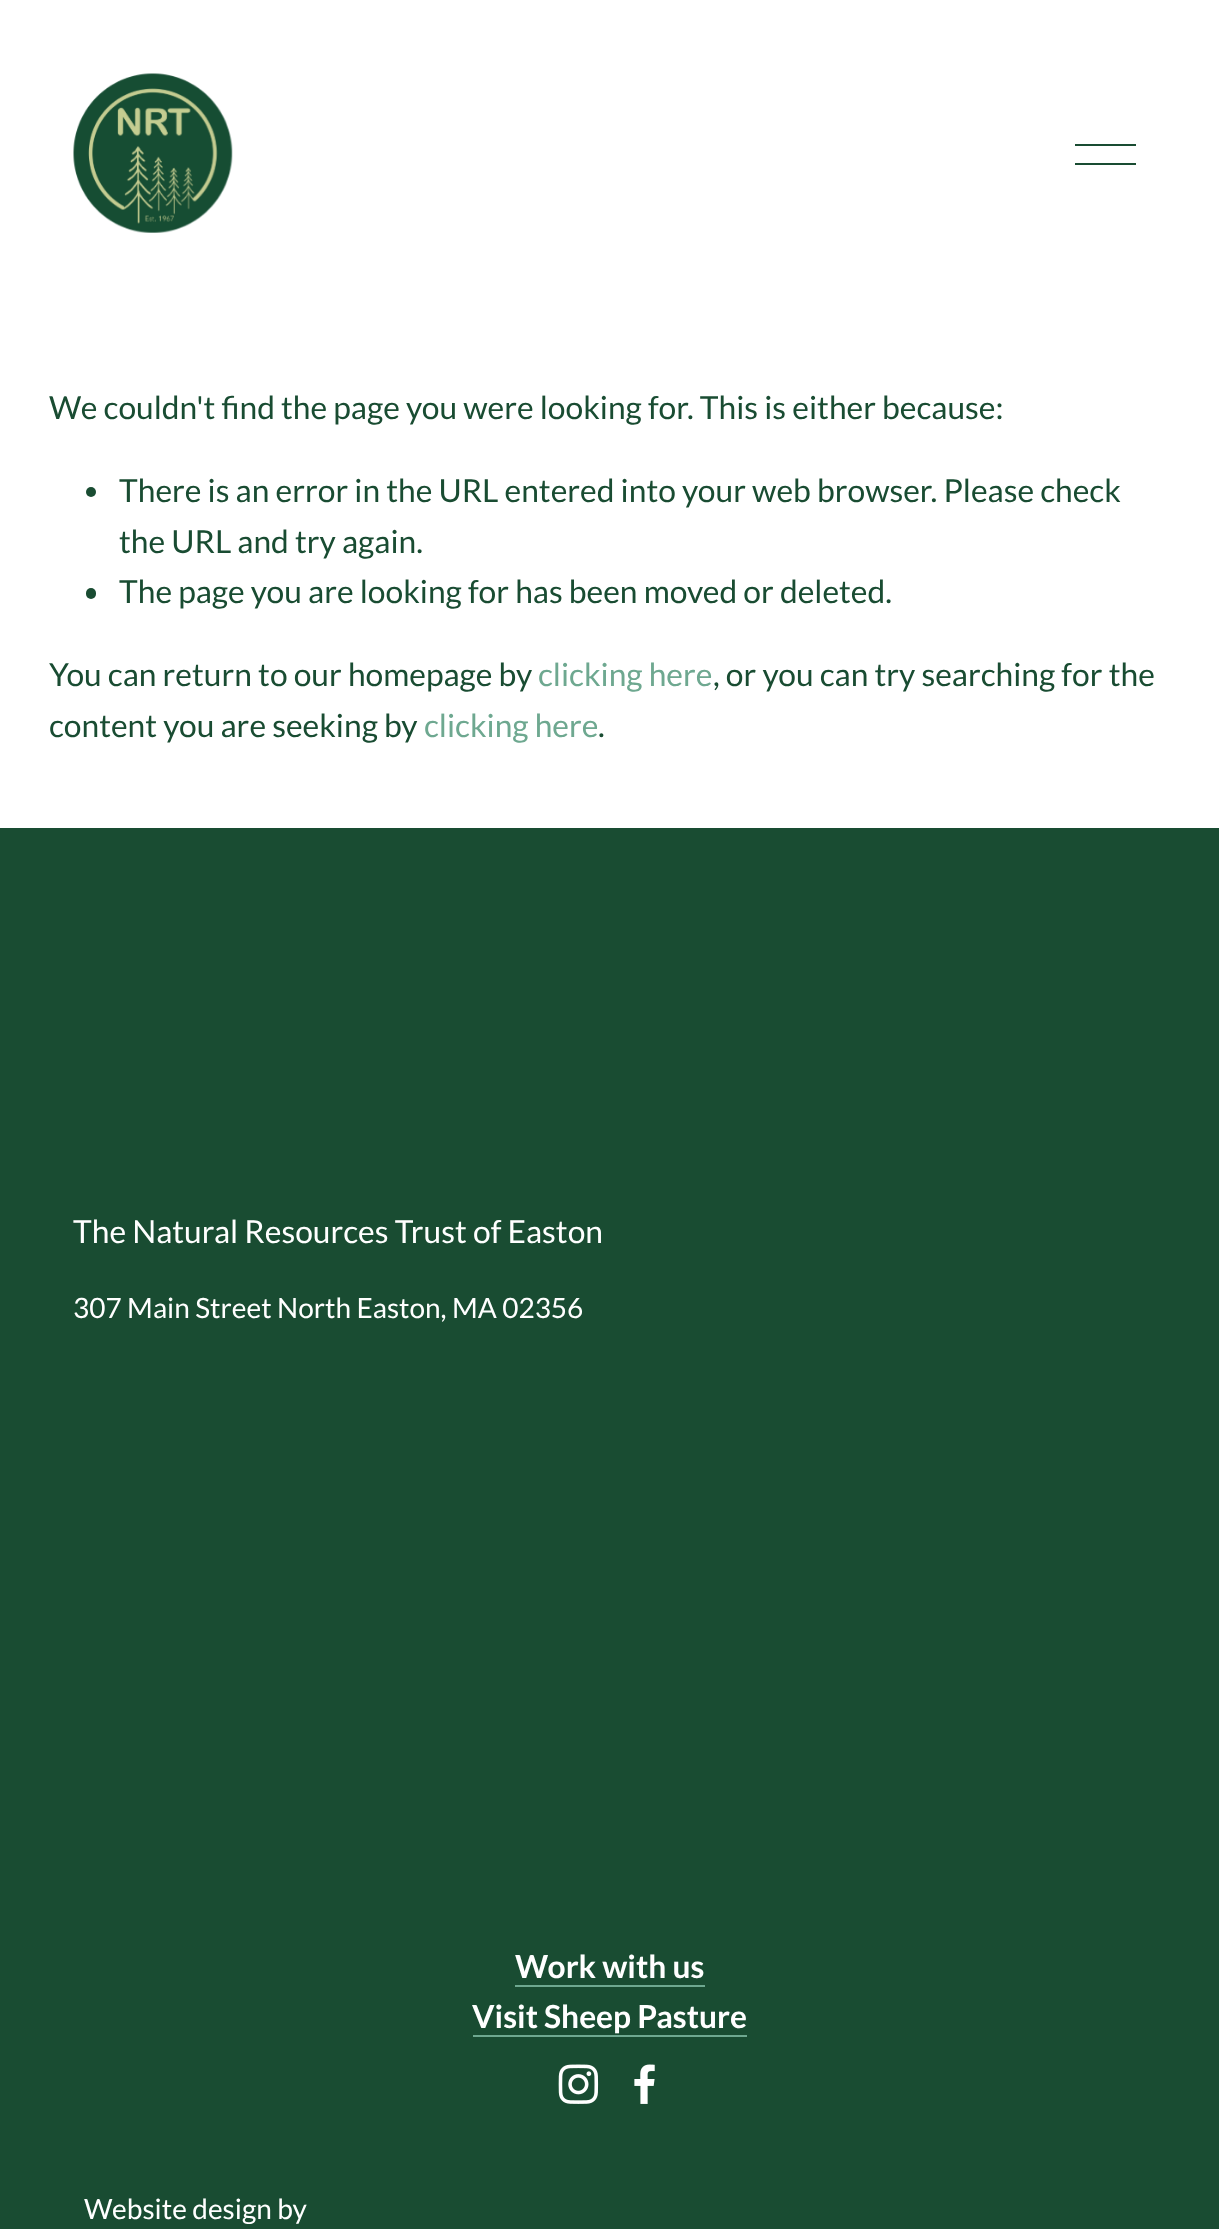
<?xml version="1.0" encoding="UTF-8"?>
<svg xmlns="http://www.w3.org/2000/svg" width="1219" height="2229">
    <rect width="100%" height="100%" fill="#FFFFFF"/>
    <image x="73" y="73" width="160" height="160" href="img_01.png"/>
    <rect x="1075" y="144" width="61" height="2" fill="#194C32"/>
    <rect x="1075" y="163" width="61" height="2" fill="#194C32"/>
    <text x="49" y="419" font-family="Lato" font-size="31.75" fill="#194C32">We couldn't find the page you were looking for. This is either because:</text>
    <circle cx="91" cy="492" r="5" fill="#194C32"/>
    <text font-family="Lato" font-size="31.75" fill="#194C32">
        <tspan x="119" y="502">There is an error in the URL entered into your web browser. Please check</tspan>
        <tspan x="119" y="553">the URL and try again.</tspan>
    </text>
    <rect x="86" y="588" width="10" height="11" rx="5" fill="#194C32"/>
    <text x="119" y="603" font-family="Lato" font-size="31.75" fill="#194C32">The page you are looking for has been moved or deleted.</text>
    <text x="49" y="686" font-family="Lato" font-size="31.75" fill="#194C32">You can return to our homepage by</text>
    <text x="538" y="686" font-family="Lato" font-size="31.75" fill="#6EA890">clicking here</text>
    <text x="713" y="686" font-family="Lato" font-size="31.75" fill="#194C32">, or you can try searching for the</text>
    <text x="49" y="737" font-family="Lato" font-size="31.75" fill="#194C32">content you are seeking by</text>
    <text x="424" y="737" font-family="Lato" font-size="31.75" fill="#6EA890">clicking here</text>
    <text x="598" y="737" font-family="Lato" font-size="31.75" fill="#194C32">.</text>
    <rect x="0" y="828" width="1219" height="1401" fill="#194C32"/>
    <text x="73" y="1243" font-family="Lato" font-size="31.75" fill="#FFFFFF">The Natural Resources Trust of Easton</text>
    <text x="73" y="1318" font-family="Lato" font-size="28" fill="#FFFFFF">307 Main Street North Easton, MA 02356</text>
    <text x="515" y="1978" font-family="Lato" font-size="31.75" font-weight="700" fill="#FFFFFF">Work with us</text>
    <rect x="515" y="1985" width="190" height="2" fill="#6EA890"/>
    <text x="472" y="2028" font-family="Lato" font-size="31.75" font-weight="700" fill="#FFFFFF">Visit Sheep Pasture</text>
    <rect x="473" y="2035" width="274" height="2" fill="#6EA890"/>
    <image x="558" y="2064" width="41" height="40" href="img_02.png"/>
    <image x="634" y="2064" width="21" height="40" href="img_03.png"/>
    <text x="84" y="2219" font-family="Lato" font-size="28" fill="#FFFFFF">Website design by</text>
</svg>
